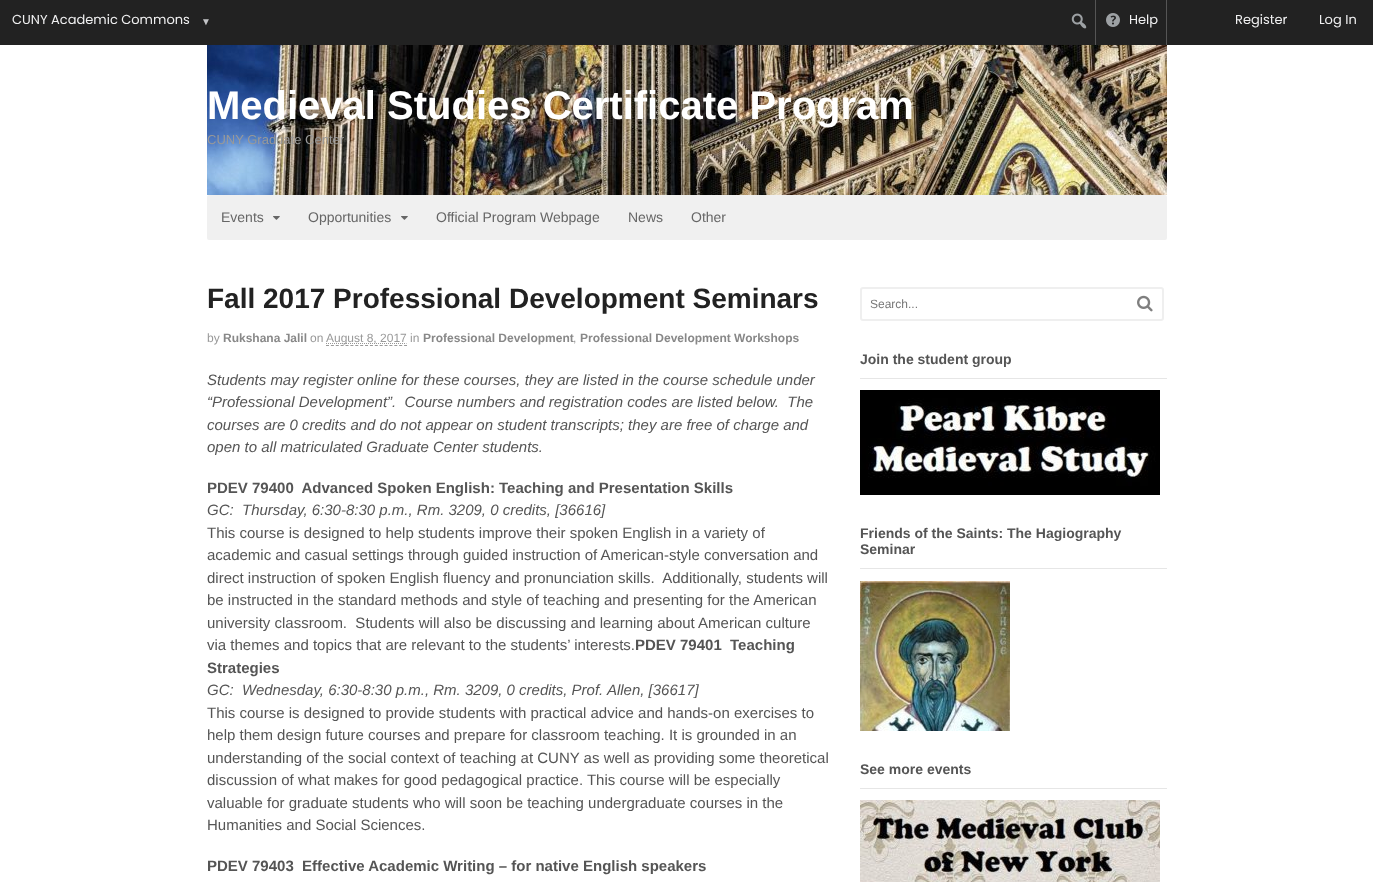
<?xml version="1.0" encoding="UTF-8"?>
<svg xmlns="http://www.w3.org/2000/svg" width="1373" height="882">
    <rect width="100%" height="100%" fill="#FFFFFF"/>
    <rect x="0" y="0" width="1373" height="45" fill="#222222"/>
    <text x="12" y="24" font-family="Poppins" font-size="13" fill="#F0F0F1">CUNY Academic Commons</text>
    <text x="201" y="25" font-family="Liberation Sans" font-size="10" fill="#C3C4C7">▼</text>
    <text x="1235" y="24" font-family="Poppins" font-size="13" fill="#F0F0F1">Register</text>
    <text x="1319" y="24" font-family="Poppins" font-size="13" fill="#F0F0F1">Log In</text>
    <image x="1071" y="13" width="16" height="16" href="img_01.png"/>
    <rect x="1095" y="0" width="1" height="45" fill="#555555"/>
    <image x="1106" y="13" width="14" height="14" href="img_02.png"/>
    <text x="1129" y="24" font-family="Poppins" font-size="13" fill="#F0F0F1">Help</text>
    <rect x="1166" y="0" width="1" height="45" fill="#555555"/>
    <image x="207" y="45" width="960" height="150" href="img_03.png"/>
    <text x="207" y="119" font-family="Liberation Sans" font-size="40" font-weight="700" fill="#FFFFFF">Medieval Studies Certificate Program</text>
    <text x="207" y="144" font-family="Liberation Sans" font-size="13" fill="#999999">CUNY Graduate Center</text>
    <rect x="207" y="195" width="960" height="45" rx="2" fill="#F0F0F0"/>
    <text x="221" y="222" font-family="Liberation Sans" font-size="14" fill="#666666">Events</text>
    <image x="273" y="216" width="7" height="4" href="img_04.png"/>
    <text x="308" y="222" font-family="Liberation Sans" font-size="14" fill="#666666">Opportunities</text>
    <image x="401" y="216" width="7" height="4" href="img_04.png"/>
    <text x="436" y="222" font-family="Liberation Sans" font-size="14" fill="#666666">Official Program Webpage</text>
    <text x="628" y="222" font-family="Liberation Sans" font-size="14" fill="#666666">News</text>
    <text x="691" y="222" font-family="Liberation Sans" font-size="14" fill="#666666">Other</text>
    <text x="207" y="308" font-family="Liberation Sans" font-size="28" font-weight="700" fill="#222222">Fall 2017 Professional Development Seminars</text>
    <text x="207" y="342" font-family="Liberation Sans" font-size="12" fill="#999999">by</text>
    <text x="223" y="342" font-family="Liberation Sans" font-size="12" font-weight="700" fill="#888888">Rukshana Jalil</text>
    <text x="310" y="342" font-family="Liberation Sans" font-size="12" fill="#999999">on</text>
    <path d="M 326 343.5 H 406.5" fill="none" stroke="#999999" stroke-dasharray="1 1"/>
    <text x="326" y="342" font-family="Liberation Sans" font-size="12" fill="#999999">August 8, 2017 in</text>
    <path d="M 326 345.5 H 407" fill="none" stroke="#999999" stroke-dasharray="3 1.88"/>
    <text x="423" y="342" font-family="Liberation Sans" font-size="12" font-weight="700" fill="#888888">Professional Development</text>
    <text x="573" y="342" font-family="Liberation Sans" font-size="12" fill="#999999">,</text>
    <text x="580" y="342" font-family="Liberation Sans" font-size="12" font-weight="700" fill="#888888">Professional Development Workshops</text>
    <text font-family="Liberation Sans" font-size="15" font-style="italic" fill="#555555" xml:space="preserve"><tspan x="207" y="385">Students may register online for these courses, they are listed in the course schedule under</tspan><tspan x="207" y="407">“Professional Development”.  Course numbers and registration codes are listed below.  The</tspan><tspan x="207" y="430">courses are 0 credits and do not appear on student transcripts; they are free of charge and</tspan><tspan x="207" y="452">open to all matriculated Graduate Center students.</tspan></text>
    <text x="207" y="493" font-family="Liberation Sans" font-size="15" font-weight="700" fill="#555555" xml:space="preserve">PDEV 79400  Advanced Spoken English: Teaching and Presentation Skills</text>
    <text x="207" y="515" font-family="Liberation Sans" font-size="15" font-style="italic" fill="#555555" xml:space="preserve">GC:  Thursday, 6:30-8:30 p.m., Rm. 3209, 0 credits, [36616]</text>
    <text font-family="Liberation Sans" font-size="15" fill="#555555" xml:space="preserve"><tspan x="207" y="538">This course is designed to help students improve their spoken English in a variety of</tspan><tspan x="207" y="560">academic and casual settings through guided instruction of American-style conversation and</tspan><tspan x="207" y="583">direct instruction of spoken English fluency and pronunciation skills.  Additionally, students will</tspan><tspan x="207" y="605">be instructed in the standard methods and style of teaching and presenting for the American</tspan><tspan x="207" y="628">university classroom.  Students will also be discussing and learning about American culture</tspan><tspan x="207" y="650">via themes and topics that are relevant to the students’ interests.</tspan></text>
    <text x="635" y="650" font-family="Liberation Sans" font-size="15" font-weight="700" fill="#555555" xml:space="preserve">PDEV 79401  Teaching</text>
    <text x="207" y="673" font-family="Liberation Sans" font-size="15" font-weight="700" fill="#555555">Strategies</text>
    <text x="207" y="695" font-family="Liberation Sans" font-size="15" font-style="italic" fill="#555555" xml:space="preserve">GC:  Wednesday, 6:30-8:30 p.m., Rm. 3209, 0 credits, Prof. Allen, [36617]</text>
    <text font-family="Liberation Sans" font-size="15" fill="#555555">
        <tspan x="207" y="718">This course is designed to provide students with practical advice and hands-on exercises to</tspan>
        <tspan x="207" y="740">help them design future courses and prepare for classroom teaching. It is grounded in an</tspan>
        <tspan x="207" y="763">understanding of the social context of teaching at CUNY as well as providing some theoretical</tspan>
        <tspan x="207" y="785">discussion of what makes for good pedagogical practice. This course will be especially</tspan>
        <tspan x="207" y="808">valuable for graduate students who will soon be teaching undergraduate courses in the</tspan>
        <tspan x="207" y="830">Humanities and Social Sciences.</tspan>
    </text>
    <text x="207" y="871" font-family="Liberation Sans" font-size="15" font-weight="700" fill="#555555" xml:space="preserve">PDEV 79403  Effective Academic Writing – for native English speakers</text>
    <rect x="861" y="288" width="302" height="32" rx="2" fill="none" stroke="#EFEFEF" stroke-width="2"/>
    <text x="870" y="308" font-family="Liberation Sans" font-size="12" fill="#777777">Search...</text>
    <image x="1137" y="295" width="16" height="17" href="img_05.png"/>
    <rect x="860" y="378" width="307" height="1" fill="#E6E6E6"/>
    <text x="860" y="364" font-family="Liberation Sans" font-size="14" font-weight="700" fill="#555555">Join the student group</text>
    <image x="860" y="390" width="300" height="105" href="img_06.png"/>
    <rect x="860" y="568" width="307" height="1" fill="#E6E6E6"/>
    <text font-family="Liberation Sans" font-size="14" font-weight="700" fill="#555555">
        <tspan x="860" y="538">Friends of the Saints: The Hagiography</tspan>
        <tspan x="860" y="554">Seminar</tspan>
    </text>
    <image x="860" y="581" width="150" height="150" href="img_07.png"/>
    <rect x="860" y="788" width="307" height="1" fill="#E6E6E6"/>
    <text x="860" y="774" font-family="Liberation Sans" font-size="14" font-weight="700" fill="#555555">See more events</text>
    <image x="860" y="800" width="300" height="82" href="img_08.png"/>
</svg>
